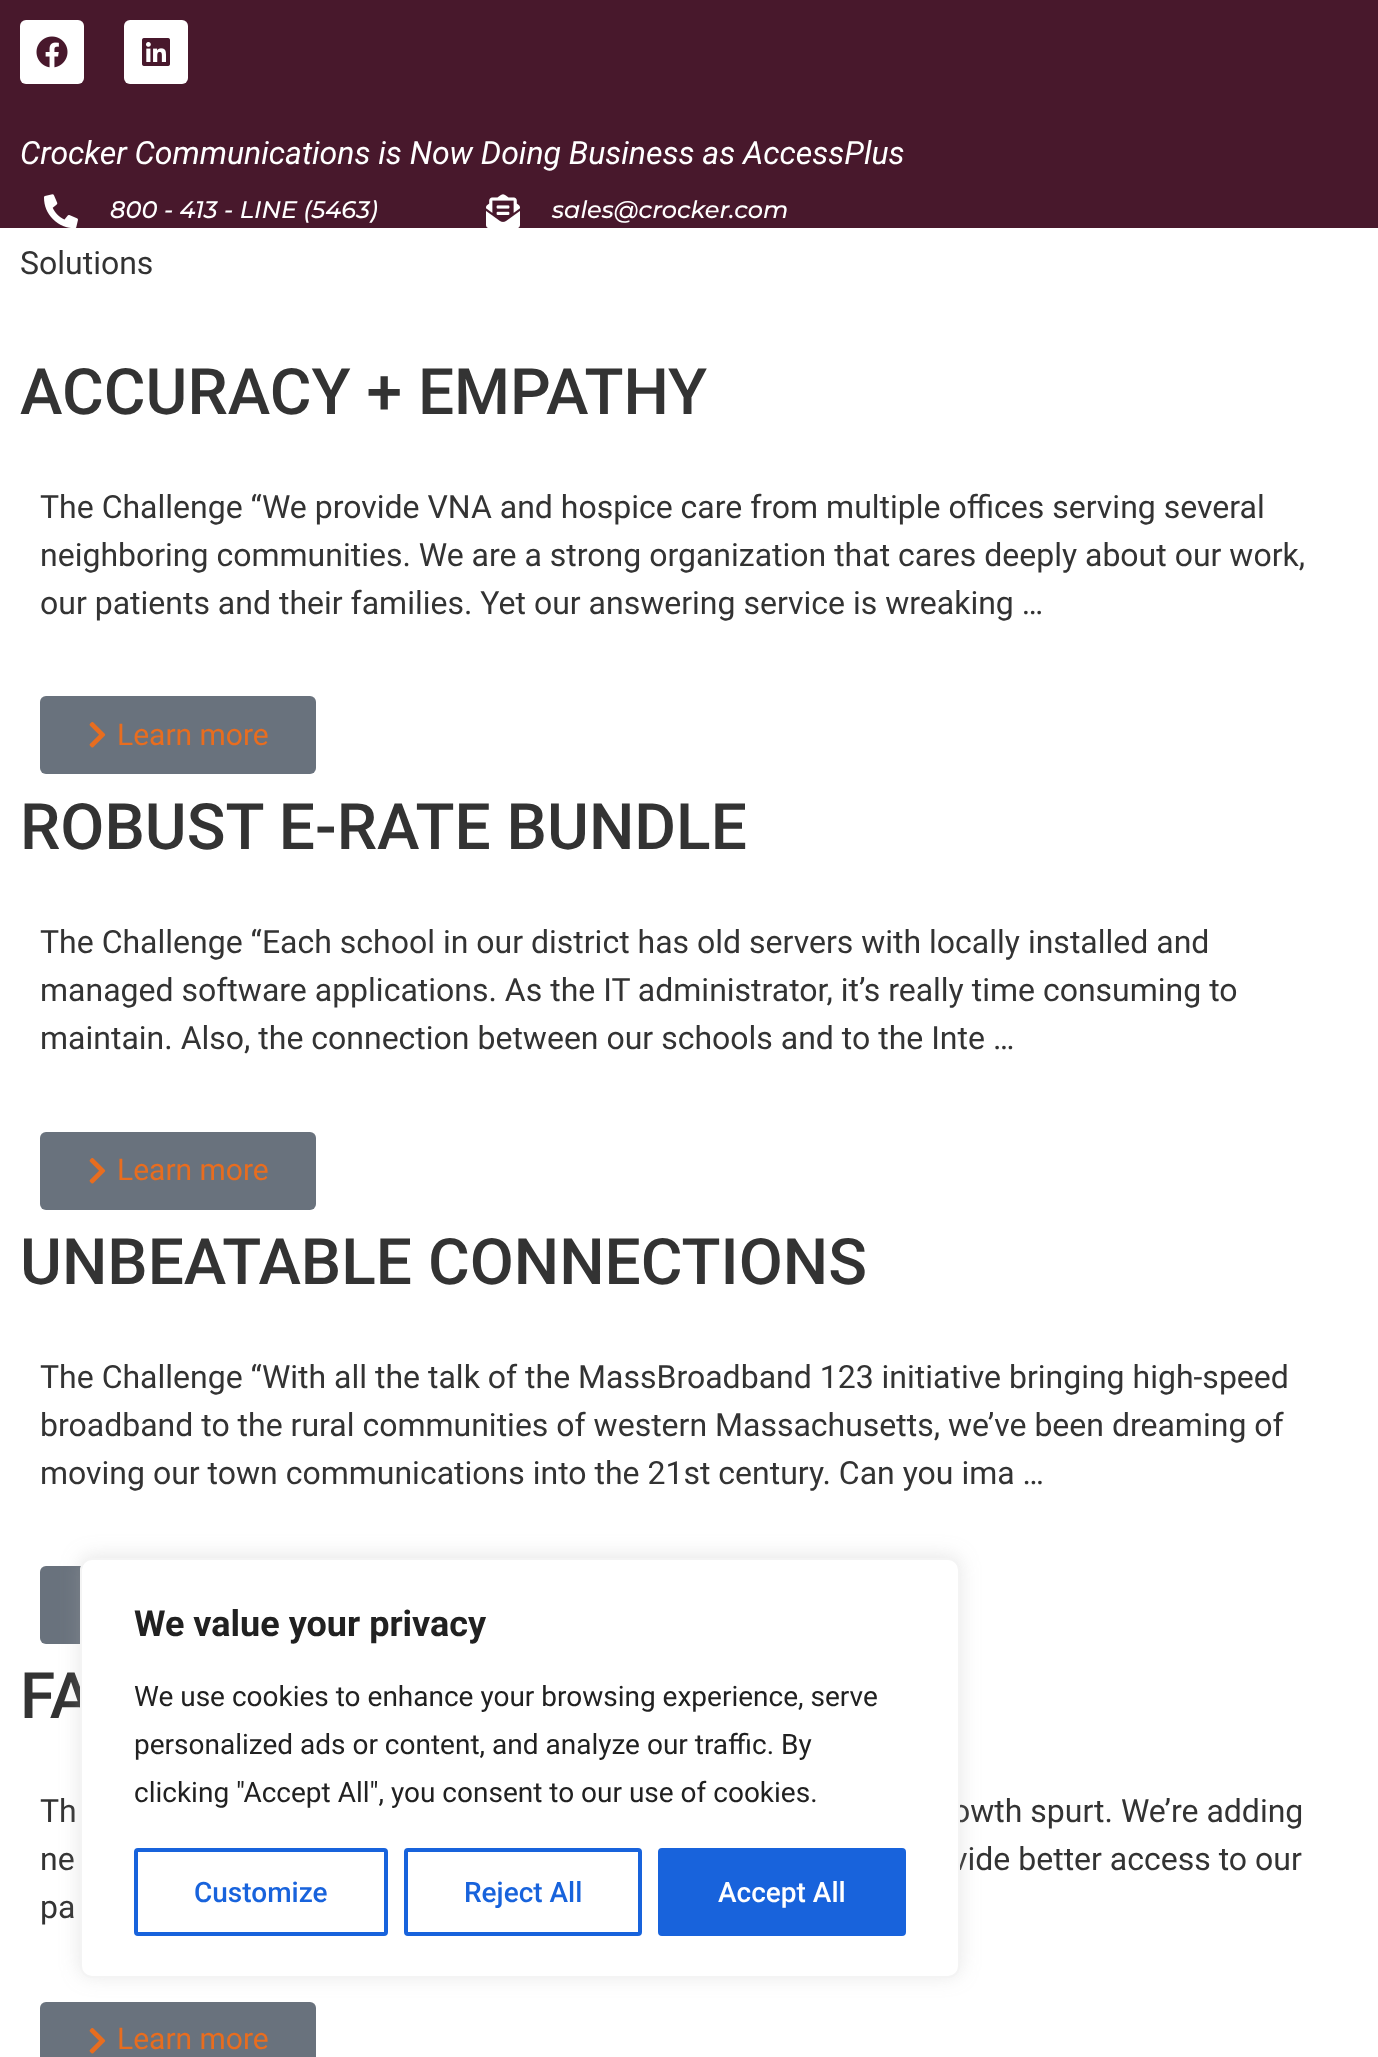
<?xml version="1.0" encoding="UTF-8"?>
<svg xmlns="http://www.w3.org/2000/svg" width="1378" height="2057">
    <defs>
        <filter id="blur1" x="-50%" y="-200%" width="200%" height="500%"><feGaussianBlur stdDeviation="10"/></filter>
    </defs>
    <rect width="100%" height="100%" fill="#FFFFFF"/>
    <rect x="0" y="0" width="1378" height="228" fill="#48182C"/>
    <rect x="20" y="20" width="64" height="64" rx="6" fill="#FFFFFF"/>
    <image x="36" y="36" width="32" height="32" href="img_01.png"/>
    <rect x="124" y="20" width="64" height="64" rx="6" fill="#FFFFFF"/>
    <image x="142" y="38" width="28" height="28" href="img_02.png"/>
    <text x="20" y="164" font-family="Roboto" font-size="32" font-style="italic" fill="#FFFFFF">Crocker Communications is Now Doing Business as AccessPlus</text>
    <image x="44" y="194" width="34" height="34" href="img_03.png"/>
    <text x="110" y="218" font-family="Montserrat" font-size="24" font-weight="500" font-style="italic" fill="#FFFFFF">800 - 413 - LINE (5463)</text>
    <image x="486" y="194" width="34" height="34" href="img_04.png"/>
    <text x="552" y="218" font-family="Montserrat" font-size="24" font-weight="500" font-style="italic" fill="#FFFFFF">sales@crocker.com</text>
    <text x="20" y="274" font-family="Roboto" font-size="32" fill="#333333">Solutions</text>
    <text x="20" y="414" font-family="Roboto" font-size="64" font-weight="500" fill="#333333">ACCURACY + EMPATHY</text>
    <text font-family="Roboto" font-size="32" fill="#333333">
        <tspan x="40" y="518">The Challenge “We provide VNA and hospice care from multiple offices serving several</tspan>
        <tspan x="40" y="566">neighboring communities. We are a strong organization that cares deeply about our work,</tspan>
        <tspan x="40" y="614">our patients and their families. Yet our answering service is wreaking …</tspan>
    </text>
    <rect x="40" y="696" width="276" height="78" rx="6" fill="#69727D"/>
    <image x="89" y="722" width="17" height="26" href="img_05.png"/>
    <text x="117" y="745" font-family="Roboto" font-size="30" fill="#E86D1F">Learn more</text>
    <text x="20" y="849" font-family="Roboto" font-size="64" font-weight="500" fill="#333333">ROBUST E-RATE BUNDLE</text>
    <text font-family="Roboto" font-size="32" fill="#333333">
        <tspan x="40" y="953">The Challenge “Each school in our district has old servers with locally installed and</tspan>
        <tspan x="40" y="1001">managed software applications. As the IT administrator, it’s really time consuming to</tspan>
        <tspan x="40" y="1049">maintain. Also, the connection between our schools and to the Inte …</tspan>
    </text>
    <rect x="40" y="1132" width="276" height="78" rx="6" fill="#69727D"/>
    <image x="89" y="1158" width="17" height="26" href="img_05.png"/>
    <text x="117" y="1180" font-family="Roboto" font-size="30" fill="#E86D1F">Learn more</text>
    <text x="20" y="1284" font-family="Roboto" font-size="64" font-weight="500" fill="#333333">UNBEATABLE CONNECTIONS</text>
    <text font-family="Roboto" font-size="32" fill="#333333">
        <tspan x="40" y="1388">The Challenge “With all the talk of the MassBroadband 123 initiative bringing high-speed</tspan>
        <tspan x="40" y="1436">broadband to the rural communities of western Massachusetts, we’ve been dreaming of</tspan>
        <tspan x="40" y="1484">moving our town communications into the 21st century. Can you ima …</tspan>
    </text>
    <rect x="40" y="1566" width="276" height="78" rx="6" fill="#69727D"/>
    <text x="20" y="1718" font-family="Roboto" font-size="64" font-weight="500" fill="#333333">FA</text>
    <text x="40" y="1822" font-family="Roboto" font-size="32" fill="#333333">Th</text>
    <text x="952" y="1822" font-family="Roboto" font-size="32" fill="#333333">owth spurt. We’re adding</text>
    <text x="40" y="1870" font-family="Roboto" font-size="32" fill="#333333">ne</text>
    <text x="952" y="1870" font-family="Roboto" font-size="32" fill="#333333">vide better access to our</text>
    <text x="40" y="1918" font-family="Roboto" font-size="32" fill="#333333">pa</text>
    <rect x="40" y="2002" width="276" height="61" rx="6" fill="#69727D"/>
    <image x="89" y="2028" width="17" height="26" href="img_05.png"/>
    <text x="117" y="2049" font-family="Roboto" font-size="30" fill="#E86D1F">Learn more</text>
    <rect x="80" y="1556" width="880" height="420" rx="12" fill="#ACABAB" fill-opacity="0.3" filter="url(#blur1)"/>
    <rect x="81" y="1559" width="878" height="418" rx="11" fill="#FFFFFF" stroke="#F4F4F4" stroke-width="2"/>
    <text x="134" y="1636" font-family="Roboto" font-size="36" font-weight="700" fill="#212121">We value your privacy</text>
    <text font-family="Roboto" font-size="28" fill="#212121">
        <tspan x="134" y="1706">We use cookies to enhance your browsing experience, serve</tspan>
        <tspan x="134" y="1754">personalized ads or content, and analyze our traffic. By</tspan>
        <tspan x="134" y="1802">clicking "Accept All", you consent to our use of cookies.</tspan>
    </text>
    <rect x="136" y="1850" width="250" height="84" rx="2" fill="none" stroke="#1863DC" stroke-width="4"/>
    <text x="194" y="1902" font-family="Roboto" font-size="28" font-weight="500" fill="#1863DC">Customize</text>
    <rect x="406" y="1850" width="234" height="84" rx="2" fill="none" stroke="#1863DC" stroke-width="4"/>
    <text x="464" y="1902" font-family="Roboto" font-size="28" font-weight="500" fill="#1863DC">Reject All</text>
    <rect x="660" y="1850" width="244" height="84" rx="2" fill="#1863DC" stroke="#1863DC" stroke-width="4"/>
    <text x="718" y="1902" font-family="Roboto" font-size="28" font-weight="500" fill="#FFFFFF">Accept All</text>
</svg>
